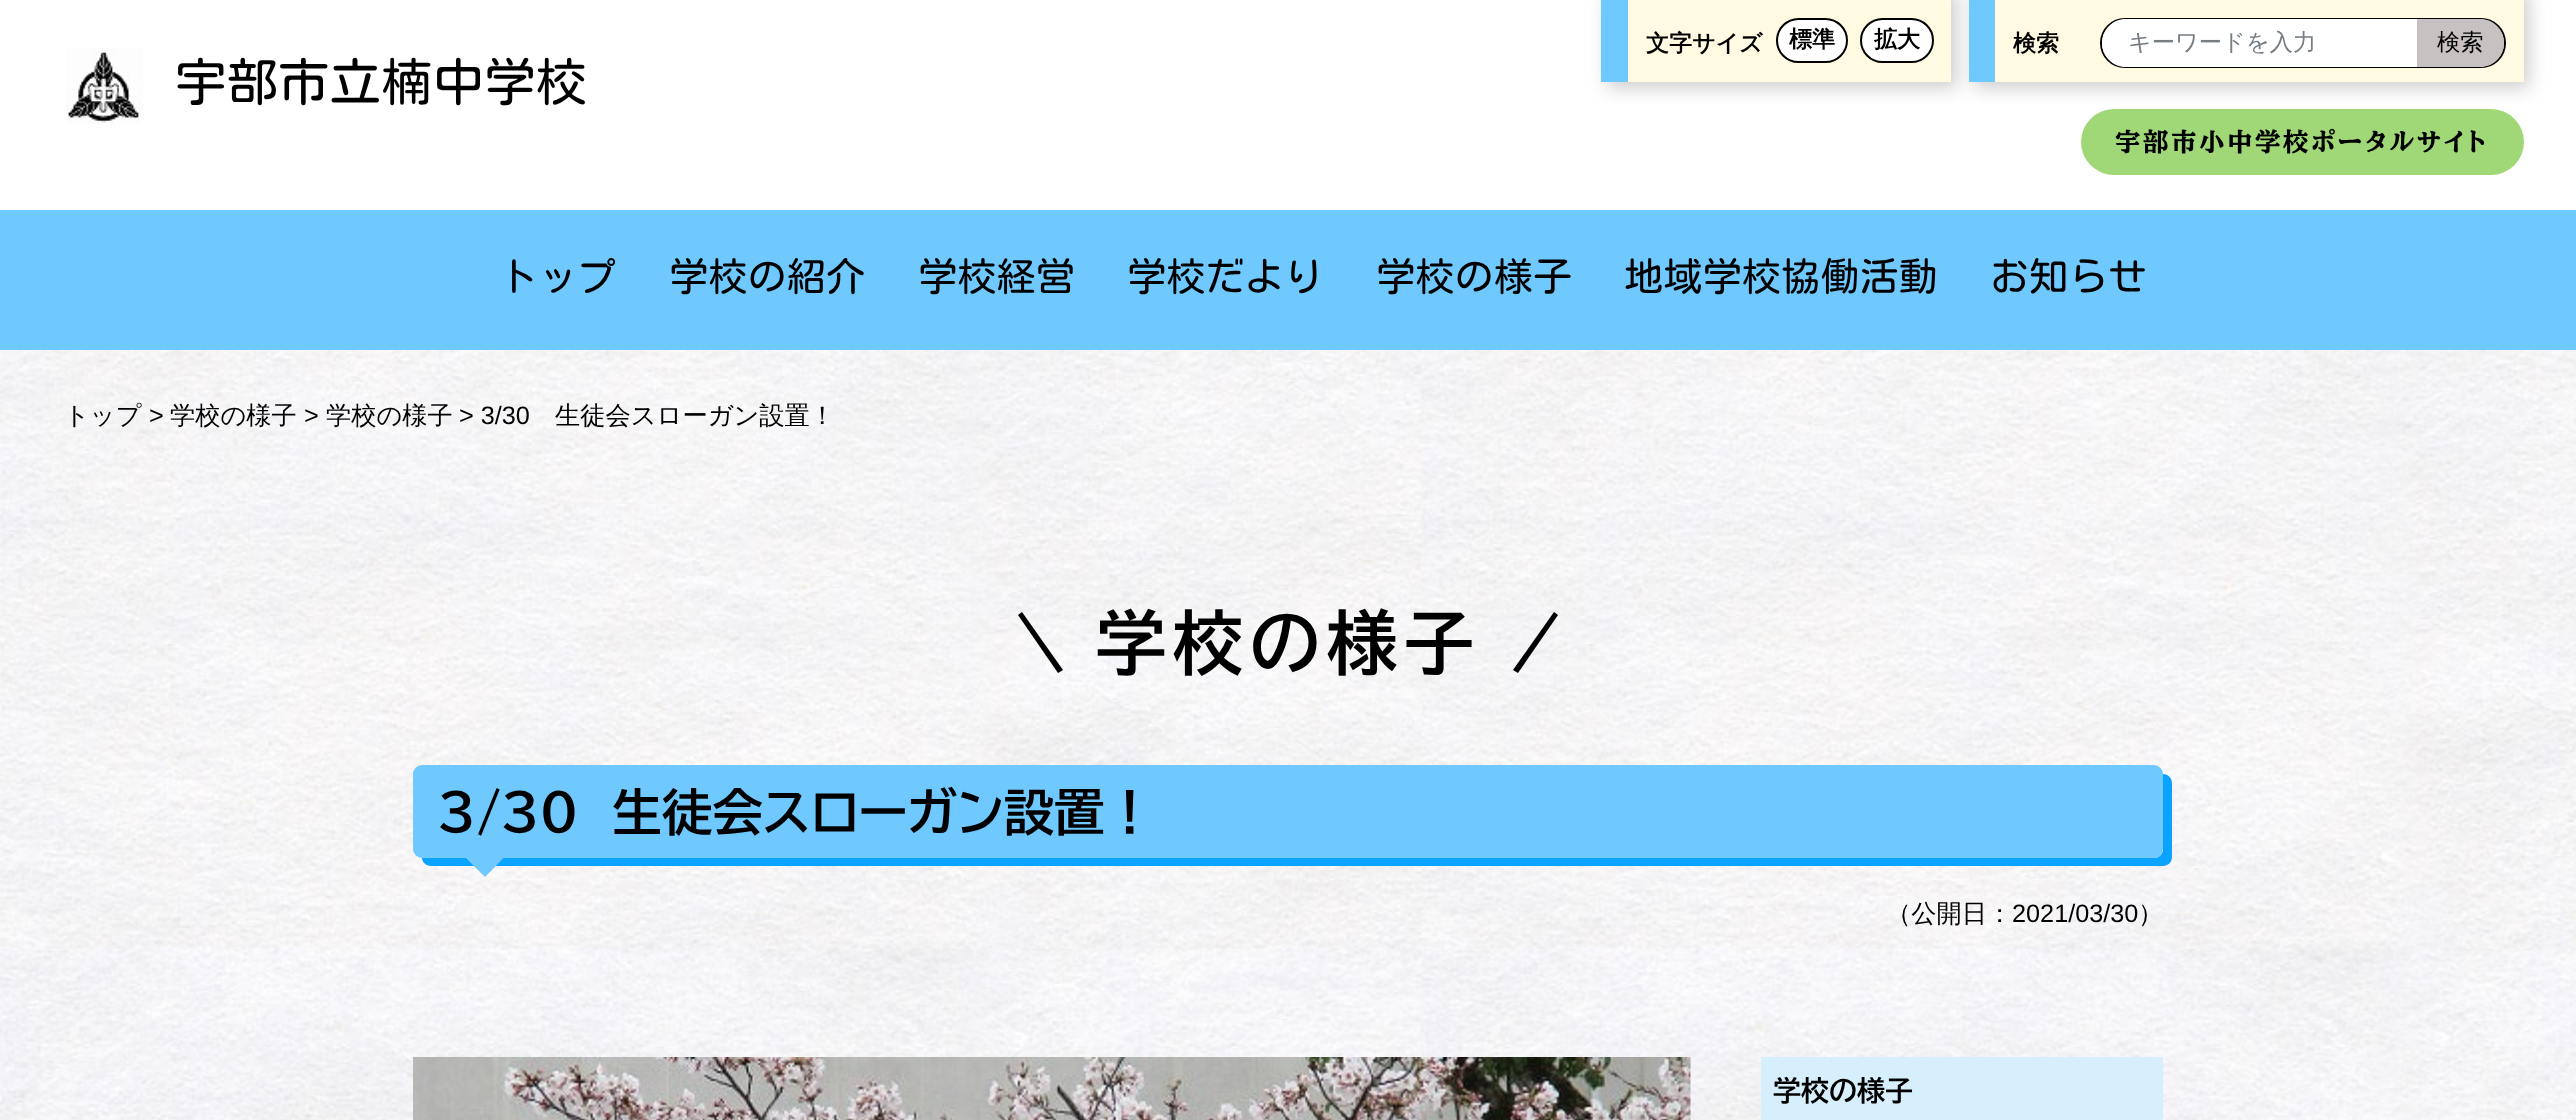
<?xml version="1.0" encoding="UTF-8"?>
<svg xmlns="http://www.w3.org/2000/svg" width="2576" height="1120">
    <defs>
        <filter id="blur1" x="-50%" y="-200%" width="200%" height="500%"><feGaussianBlur stdDeviation="9"/></filter>
    </defs>
    <rect width="100%" height="100%" fill="#FFFFFF"/>
    <image x="0" y="350" width="2576" height="770" href="img_01.png"/>
    <image x="66" y="47" width="77" height="77" href="img_02.png"/>
    <text x="175" y="101" font-family="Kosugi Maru" font-size="51.5" fill="#000000">宇部市立楠中学校</text>
    <rect x="1607" y="-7" width="350" height="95" fill="#CECECE" filter="url(#blur1)"/>
    <rect x="1628" y="0" width="323" height="82" fill="#FFFAE1"/>
    <rect x="1601" y="0" width="27" height="82" fill="#6FC9FF"/>
    <text x="1646" y="51" font-family="WenQuanYi Zen Hei" font-size="23" font-weight="700" fill="#000000">文字サイズ</text>
    <rect x="1777" y="19" width="70" height="43" rx="21.5" fill="#FFFFFF" stroke="#000000" stroke-width="2"/>
    <text x="1789" y="47" font-family="WenQuanYi Zen Hei" font-size="23" font-weight="700" fill="#000000">標準</text>
    <rect x="1861" y="19" width="72" height="43" rx="21.5" fill="#FFFFFF" stroke="#000000" stroke-width="2"/>
    <text x="1874" y="47" font-family="WenQuanYi Zen Hei" font-size="23" font-weight="700" fill="#000000">拡大</text>
    <rect x="1974" y="-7" width="555" height="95" fill="#CECECE" filter="url(#blur1)"/>
    <rect x="1995" y="0" width="529" height="82" fill="#FFFAE1"/>
    <rect x="1969" y="0" width="26" height="82" fill="#6FC9FF"/>
    <text x="2013" y="51" font-family="WenQuanYi Zen Hei" font-size="23" font-weight="700" fill="#000000">検索</text>
    <rect x="2101" y="19" width="404" height="48" rx="24" fill="none" stroke="#000000" stroke-width="2"/>
    <path d="M 2126 19 H 2434 V 67 H 2126 C 2112.5 67 2102 56.5 2102 43 C 2102 29.5 2112.5 19 2126 19 Z" fill="#FFFFFF"/>
    <text x="2128" y="50" font-family="WenQuanYi Zen Hei" font-size="23.25" font-weight="500" fill="#767D83">キーワードを入力</text>
    <path d="M 2417 19 H 2480 C 2493.5 19 2504 29.5 2504 43 C 2504 56.5 2493.5 67 2480 67 H 2417 Z" fill="#C7C1C1"/>
    <text x="2437" y="50" font-family="WenQuanYi Zen Hei" font-size="23.25" font-weight="500" fill="#000000">検索</text>
    <rect x="2081" y="109" width="443" height="66" rx="33" fill="#A0D878"/>
    <text x="2115" y="151" font-family="BIZ UDPMincho" font-size="25.5" font-weight="700" letter-spacing="2.5" fill="#000000">宇部市小中学校ポータルサイト</text>
    <rect x="0" y="210" width="2576" height="140" fill="#6FC9FF"/>
    <text x="499" y="291" font-family="Kosugi Maru" font-size="39.25" fill="#000000">トップ</text>
    <text x="669" y="291" font-family="Kosugi Maru" font-size="39.25" fill="#000000">学校の紹介</text>
    <text x="918" y="291" font-family="Kosugi Maru" font-size="39.25" fill="#000000">学校経営</text>
    <text x="1127" y="291" font-family="Kosugi Maru" font-size="39.25" fill="#000000">学校だより</text>
    <text x="1376" y="291" font-family="Kosugi Maru" font-size="39.25" fill="#000000">学校の様子</text>
    <text x="1624" y="291" font-family="Kosugi Maru" font-size="39.25" fill="#000000">地域学校協働活動</text>
    <text x="1990" y="291" font-family="Kosugi Maru" font-size="39.25" fill="#000000">お知らせ</text>
    <text x="64" y="424" font-family="WenQuanYi Zen Hei" font-size="25.25" font-weight="500" fill="#000000">トップ</text>
    <text x="149" y="424" font-family="Liberation Sans" font-size="25.25" fill="#000000">&gt;</text>
    <text x="170" y="424" font-family="WenQuanYi Zen Hei" font-size="25.25" font-weight="500" fill="#000000">学校の様子</text>
    <text x="304" y="424" font-family="Liberation Sans" font-size="25.25" fill="#000000">&gt;</text>
    <text x="326" y="424" font-family="WenQuanYi Zen Hei" font-size="25.25" font-weight="500" fill="#000000">学校の様子</text>
    <text x="459" y="424" font-family="Liberation Sans" font-size="25.25" fill="#000000">&gt; 3/30</text>
    <text x="555" y="424" font-family="WenQuanYi Zen Hei" font-size="25.25" font-weight="500" fill="#000000">生徒会スローガン設置！</text>
    <path d="M 1018 615 L 1022 612 L 1063 670 L 1058 673 Z" fill="#000000"/>
    <text x="1096" y="669" font-family="BIZ UDPGothic" font-size="70" font-weight="700" letter-spacing="7" fill="#000000">学校の様子</text>
    <path d="M 1554 612 L 1558 615 L 1518 673 L 1513 670 Z" fill="#000000"/>
    <path d="M 422 858 C 422 862 426 866 431 866 H 2163 C 2168 866 2172 862 2172 857 V 783 C 2172 778 2168 774 2163 774 V 849 C 2163 854 2159 858 2154 858 Z" fill="#0AA3FF"/>
    <rect x="413" y="765" width="1750" height="93" rx="9" fill="#6FC9FF"/>
    <text x="438" y="831" font-family="BIZ UDPGothic" font-size="50.4" font-weight="700" fill="#000000">3/30　生徒会スローガン設置！</text>
    <path d="M 465.5 857.5 H 504 L 485 877 Z" fill="#6FC9FF"/>
    <text x="1886" y="922" font-family="WenQuanYi Zen Hei" font-size="25.25" font-weight="500" fill="#000000">（公開日：</text>
    <text x="2012" y="922" font-family="Liberation Sans" font-size="25.25" fill="#000000">2021/03/30</text>
    <text x="2138" y="922" font-family="WenQuanYi Zen Hei" font-size="25.25" font-weight="500" fill="#000000">）</text>
    <image x="413" y="1057" width="1278" height="63" href="img_03.png"/>
    <rect x="1761" y="1057" width="402" height="63" fill="#D7EFFD"/>
    <text x="1773" y="1101" font-family="BIZ UDPGothic" font-size="28" font-weight="700" fill="#000000">学校の様子</text>
</svg>
